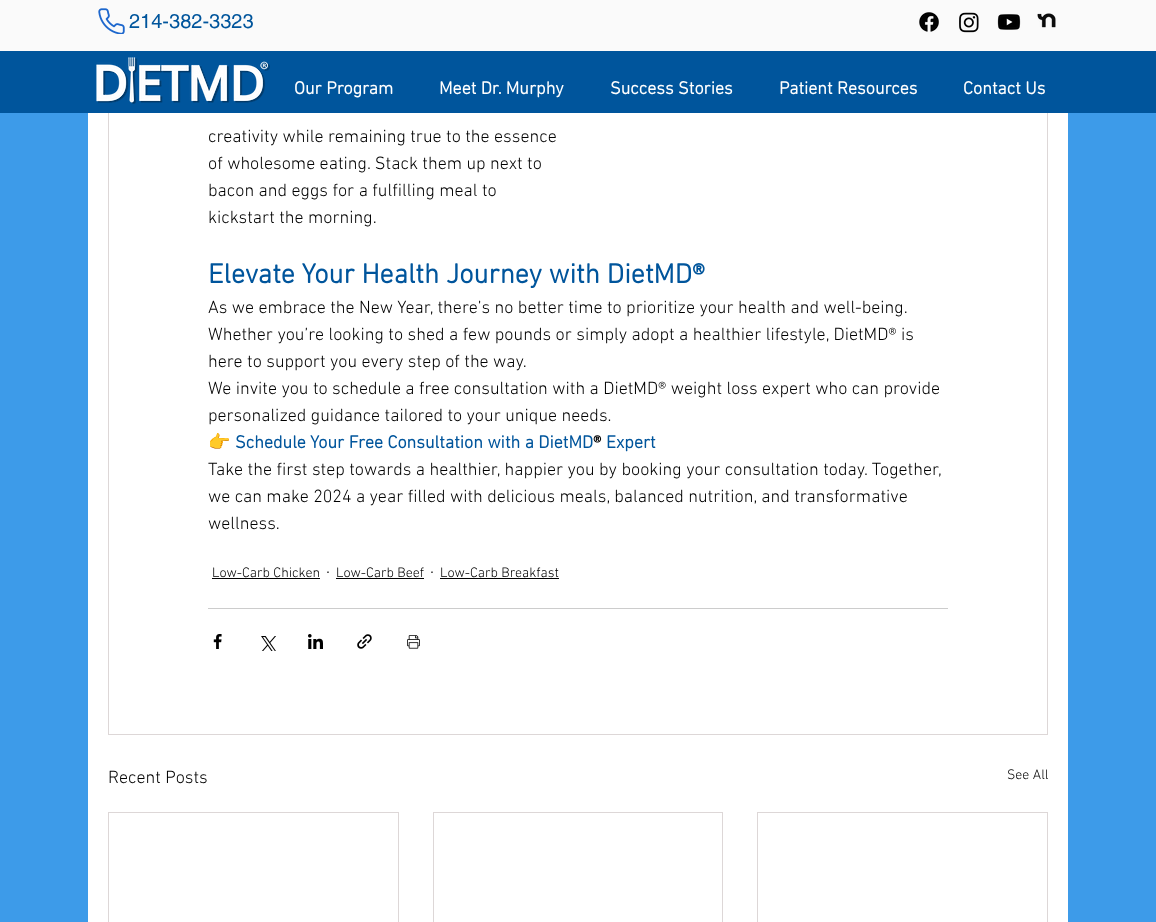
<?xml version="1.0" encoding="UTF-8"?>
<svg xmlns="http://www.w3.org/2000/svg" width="1156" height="922">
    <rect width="100%" height="100%" fill="#3D9BE9"/>
    <rect x="88" y="113" width="980" height="809" fill="#FFFFFF"/>
    <rect x="108.5" y="-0.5" width="939" height="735" fill="none" stroke="#DDD7D7"/>
    <rect x="0" y="0" width="1156" height="51" fill="#FAFAFA"/>
    <image x="98" y="8" width="27" height="26" href="img_01.png"/>
    <text x="129" y="28" font-family="helvetica" font-size="20" fill="#00559C">214-382-3323</text>
    <image x="919" y="12" width="20" height="20" href="img_02.png"/>
    <image x="959" y="12" width="20" height="21" href="img_03.png"/>
    <image x="997" y="14" width="24" height="16" href="img_04.png"/>
    <image x="1037" y="13" width="19" height="15" href="img_05.png"/>
    <rect x="0" y="51" width="1156" height="62" fill="#00559C"/>
    <image x="96" y="57" width="174" height="47" href="img_06.png"/>
    <text x="294" y="94" font-family="'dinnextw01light'" font-size="18" font-weight="700" fill="#FFFFFF">Our Program</text>
    <text x="439" y="94" font-family="'dinnextw01light'" font-size="18" font-weight="700" fill="#FFFFFF">Meet Dr. Murphy</text>
    <text x="610" y="94" font-family="'dinnextw01light'" font-size="18" font-weight="700" fill="#FFFFFF">Success Stories</text>
    <text x="779" y="94" font-family="'dinnextw01light'" font-size="18" font-weight="700" fill="#FFFFFF">Patient Resources</text>
    <text x="963" y="94" font-family="'dinnextw01light'" font-size="18" font-weight="700" fill="#FFFFFF">Contact Us</text>
    <text font-family="'dinnextw01light'" font-size="18" font-weight="300" fill="#000000">
        <tspan x="208" y="142">creativity while remaining true to the essence</tspan>
        <tspan x="208" y="169">of wholesome eating. Stack them up next to</tspan>
        <tspan x="208" y="196">bacon and eggs for a fulfilling meal to</tspan>
        <tspan x="208" y="223">kickstart the morning.</tspan>
    </text>
    <text x="208" y="283" font-family="'dinnextw01light'" font-size="28" font-weight="700" fill="#00559C">Elevate Your Health Journey with DietMD®</text>
    <text font-family="'dinnextw01light'" font-size="18" font-weight="300" fill="#000000">
        <tspan x="208" y="313">As we embrace the New Year, there’s no better time to prioritize your health and well-being.</tspan>
        <tspan x="208" y="340">Whether you’re looking to shed a few pounds or simply adopt a healthier lifestyle, DietMD® is</tspan>
        <tspan x="208" y="367">here to support you every step of the way.</tspan>
        <tspan x="208" y="394">We invite you to schedule a free consultation with a DietMD® weight loss expert who can provide</tspan>
        <tspan x="208" y="421">personalized guidance tailored to your unique needs.</tspan>
    </text>
    <text x="208" y="448" font-family="Noto Color Emoji" font-size="18" font-weight="700" fill="#000000">👉</text>
    <text x="235" y="448" font-family="'dinnextw01light'" font-size="18" font-weight="700" fill="#00559C">Schedule Your Free Consultation with a DietMD</text>
    <text x="593" y="448" font-family="'dinnextw01light'" font-size="18" font-weight="700" fill="#000000">®</text>
    <text x="606" y="448" font-family="'dinnextw01light'" font-size="18" font-weight="700" fill="#00559C">Expert</text>
    <text font-family="'dinnextw01light'" font-size="18" font-weight="300" fill="#000000">
        <tspan x="208" y="475">Take the first step towards a healthier, happier you by booking your consultation today. Together,</tspan>
        <tspan x="208" y="502">we can make 2024 a year filled with delicious meals, balanced nutrition, and transformative</tspan>
        <tspan x="208" y="529">wellness.</tspan>
    </text>
    <text x="212" y="577" font-family="'dinnextw01light'" font-size="14" font-weight="300" fill="#000000">Low-Carb Chicken</text>
    <rect x="212" y="578" width="108" height="1" fill="#000000"/>
    <text x="326" y="577" font-family="'dinnextw01light'" font-size="18" font-weight="300" fill="#000000">·</text>
    <text x="336" y="577" font-family="'dinnextw01light'" font-size="14" font-weight="300" fill="#000000">Low-Carb Beef</text>
    <rect x="336" y="578" width="88" height="1" fill="#000000"/>
    <text x="430" y="577" font-family="'dinnextw01light'" font-size="18" font-weight="300" fill="#000000">·</text>
    <text x="440" y="577" font-family="'dinnextw01light'" font-size="14" font-weight="300" fill="#000000">Low-Carb Breakfast</text>
    <rect x="440" y="578" width="119" height="1" fill="#000000"/>
    <rect x="208" y="608" width="740" height="1" fill="#CCCCCC"/>
    <image x="213" y="634" width="9" height="15" href="img_07.png"/>
    <image x="261" y="636" width="15" height="15" href="img_08.png"/>
    <image x="308" y="634" width="15" height="15" href="img_09.png"/>
    <image x="357" y="634" width="15" height="15" href="img_10.png"/>
    <image x="407" y="635" width="13" height="14" href="img_11.png"/>
    <text x="108" y="783" font-family="'dinnextw01light'" font-size="18" font-weight="300" fill="#000000">Recent Posts</text>
    <text x="1007" y="779" font-family="'dinnextw01light'" font-size="14" font-weight="300" fill="#000000">See All</text>
    <rect x="108.5" y="812.5" width="290" height="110" fill="none" stroke="#DDD7D7"/>
    <rect x="433.5" y="812.5" width="289" height="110" fill="none" stroke="#DDD7D7"/>
    <rect x="757.5" y="812.5" width="290" height="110" fill="none" stroke="#DDD7D7"/>
</svg>
